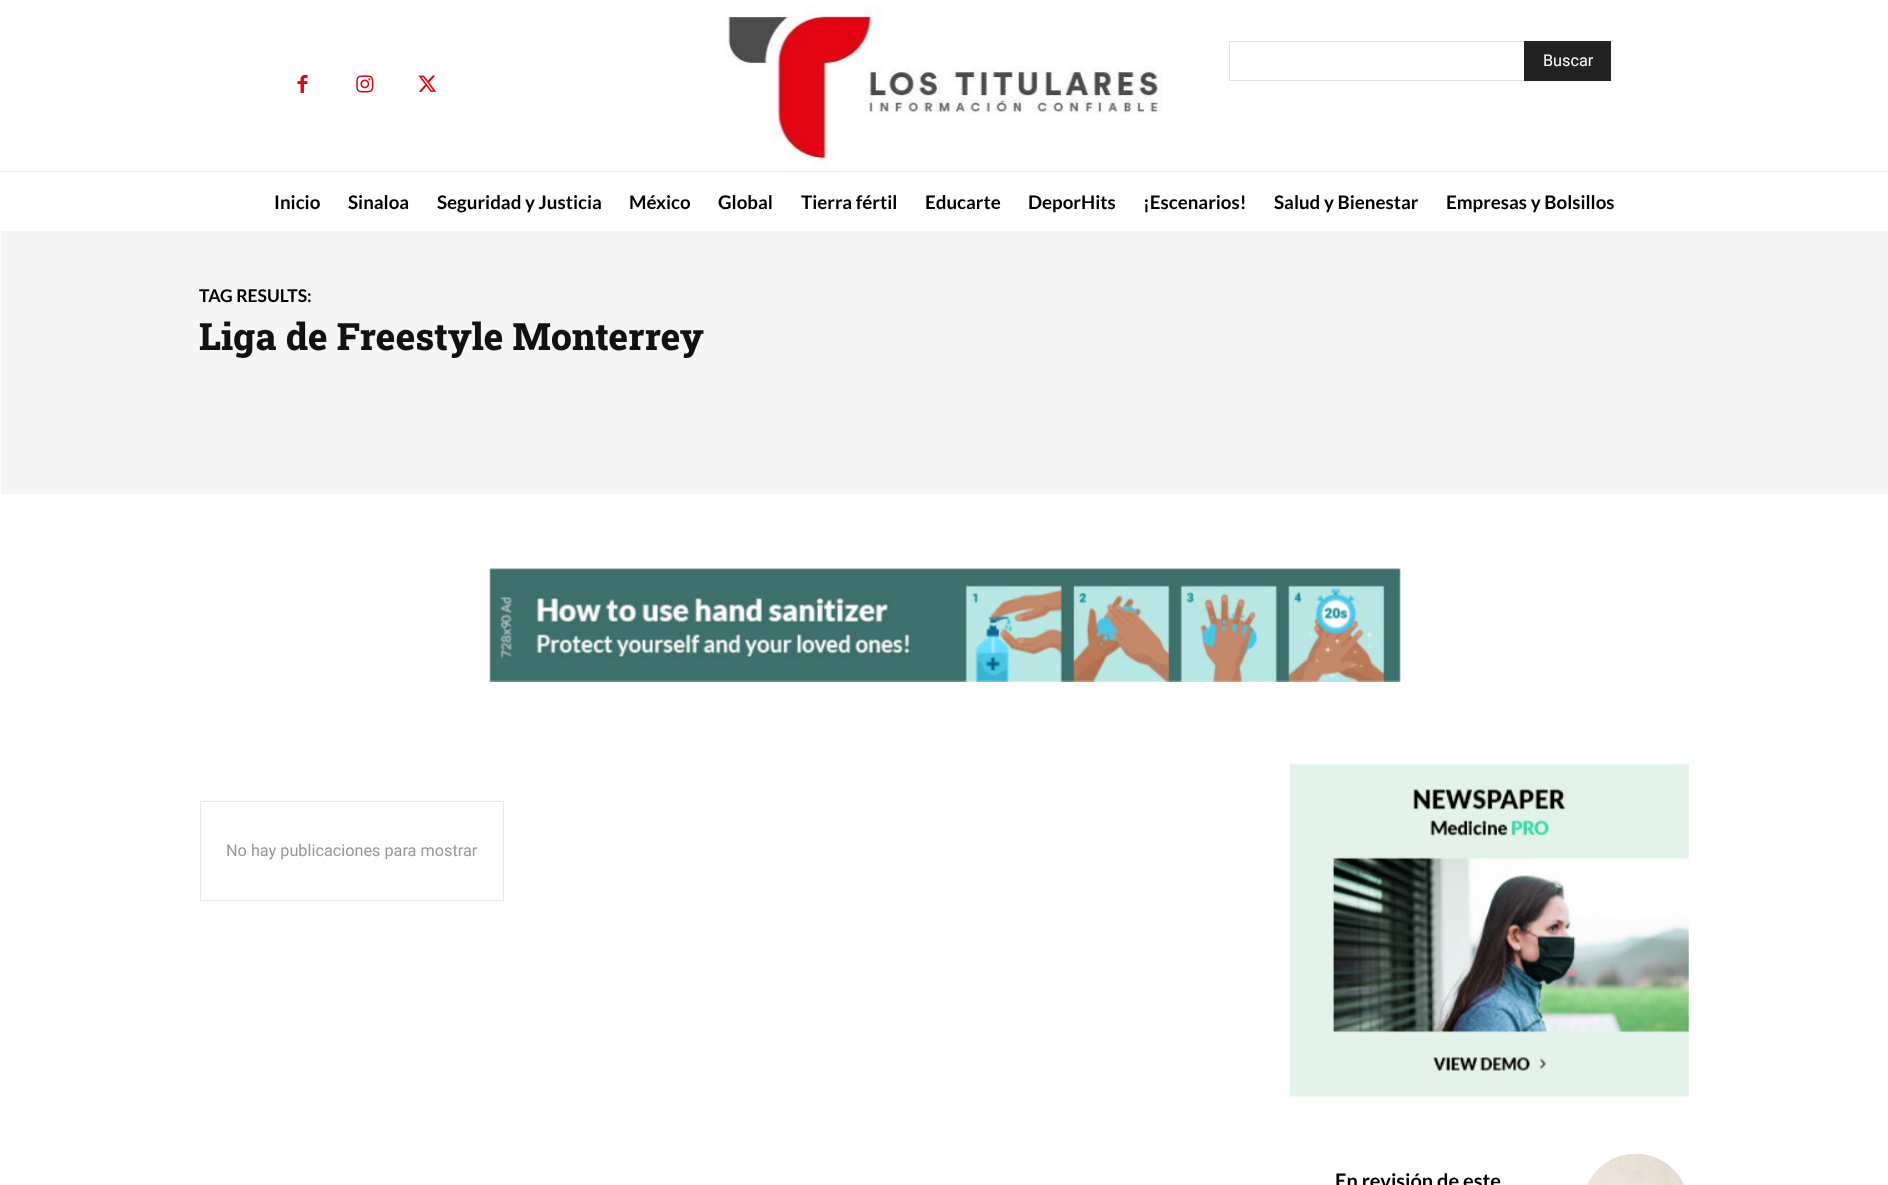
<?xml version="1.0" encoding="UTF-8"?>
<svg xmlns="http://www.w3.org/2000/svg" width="1888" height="1185">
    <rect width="100%" height="100%" fill="#FFFFFF"/>
    <image x="725" y="3" width="437" height="168" href="img_01.png"/>
    <rect x="1229.5" y="41.5" width="381" height="39" fill="none" stroke="#E1E1E1"/>
    <rect x="1524" y="41" width="87" height="40" fill="#222222"/>
    <text x="1543" y="66" font-family="Roboto" font-size="16.25" fill="#FFFFFF">Buscar</text>
    <image x="297" y="74" width="11" height="19" href="img_02.png"/>
    <image x="356" y="75" width="18" height="18" href="img_03.png"/>
    <image x="418" y="75" width="19" height="17" href="img_04.png"/>
    <rect x="1" y="171" width="1887" height="1" fill="#EAEAEA"/>
    <text x="274" y="209" font-family="Lato" font-size="18.75" font-weight="700" fill="#000000">Inicio</text>
    <text x="348" y="209" font-family="Lato" font-size="18.75" font-weight="700" fill="#000000">Sinaloa</text>
    <text x="437" y="209" font-family="Lato" font-size="18.75" font-weight="700" fill="#000000">Seguridad y Justicia</text>
    <text x="629" y="209" font-family="Lato" font-size="18.75" font-weight="700" fill="#000000">México</text>
    <text x="718" y="209" font-family="Lato" font-size="18.75" font-weight="700" fill="#000000">Global</text>
    <text x="801" y="209" font-family="Lato" font-size="18.75" font-weight="700" fill="#000000">Tierra fértil</text>
    <text x="925" y="209" font-family="Lato" font-size="18.75" font-weight="700" fill="#000000">Educarte</text>
    <text x="1028" y="209" font-family="Lato" font-size="18.75" font-weight="700" fill="#000000">DeporHits</text>
    <text x="1143" y="209" font-family="Lato" font-size="18.75" font-weight="700" fill="#000000">¡Escenarios!</text>
    <text x="1274" y="209" font-family="Lato" font-size="18.75" font-weight="700" fill="#000000">Salud y Bienestar</text>
    <text x="1446" y="209" font-family="Lato" font-size="18.75" font-weight="700" fill="#000000">Empresas y Bolsillos</text>
    <rect x="1" y="231" width="1887" height="263" fill="#F5F5F5"/>
    <text x="199" y="302" font-family="Lato" font-size="17.5" font-weight="700" fill="#000000">TAG RESULTS:</text>
    <text x="199" y="350" font-family="Roboto Slab" font-size="37.5" font-weight="800" fill="#111111">Liga de Freestyle Monterrey</text>
    <image x="489" y="568" width="912" height="114" href="img_05.png"/>
    <rect x="200.5" y="801.5" width="303" height="99" fill="none" stroke="#E8E8E8"/>
    <text x="226" y="856" font-family="Roboto" font-size="16.25" fill="#979797">No hay publicaciones para mostrar</text>
    <image x="1290" y="763" width="399" height="334" href="img_06.png"/>
    <text x="1335" y="1188" font-family="Lato" font-size="20" font-weight="700" fill="#000000">En revisión de este</text>
    <image x="1587" y="1153" width="97" height="32" href="img_07.png"/>
</svg>
